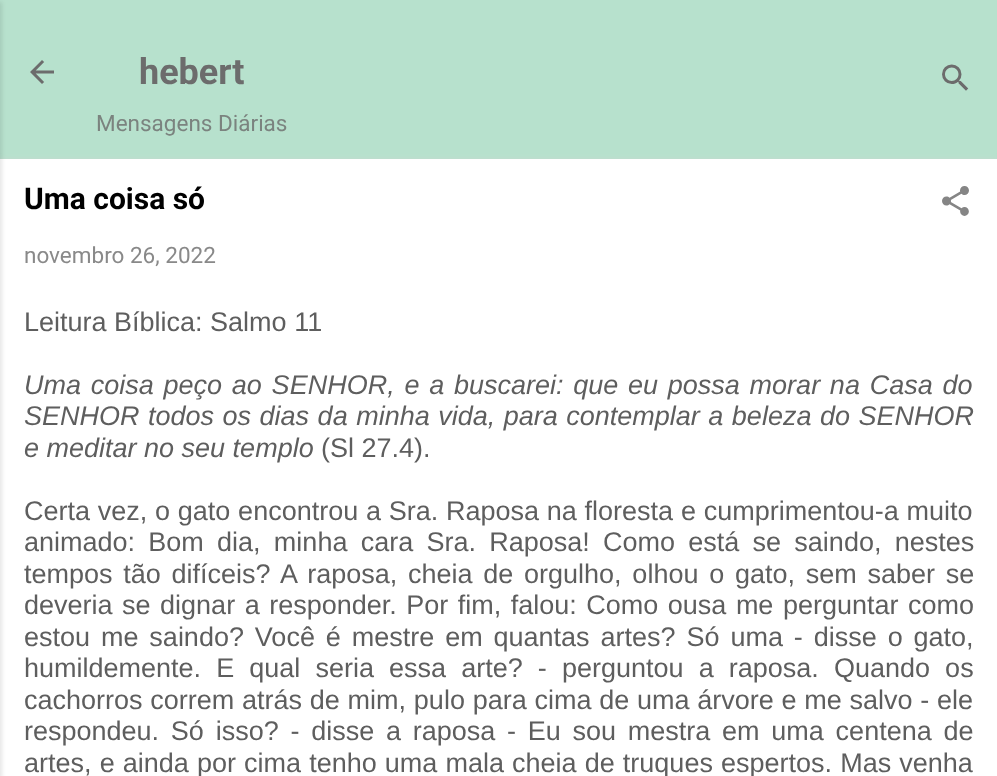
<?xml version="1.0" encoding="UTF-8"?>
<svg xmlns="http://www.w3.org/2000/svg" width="997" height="776">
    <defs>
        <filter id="blur1" x="-50%" y="-200%" width="200%" height="500%"><feGaussianBlur stdDeviation="3"/></filter>
        <filter id="blur2" x="-50%" y="-200%" width="200%" height="500%"><feGaussianBlur stdDeviation="2"/></filter>
    </defs>
    <rect width="100%" height="100%" fill="#B7E1CD"/>
    <rect x="0" y="161" width="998" height="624" fill="#D3D3D3" filter="url(#blur1)"/>
    <rect x="0" y="159" width="997" height="617" fill="#FFFFFF"/>
    <rect x="-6" y="2" width="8" height="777" fill="#000000" fill-opacity="0.1" filter="url(#blur2)"/>
    <image x="30" y="60" width="24" height="24" href="img_01.png"/>
    <text x="139" y="84" font-family="Roboto" font-size="36" font-weight="700" fill="#6C6C6C">hebert</text>
    <text x="96" y="131" font-family="Roboto" font-size="22.5" fill="#7B837F">Mensagens Diárias</text>
    <image x="942" y="64" width="27" height="27" href="img_02.png"/>
    <text x="24" y="209" font-family="Roboto" font-size="30" font-weight="700" fill="#000000">Uma coisa só</text>
    <image x="942" y="186" width="27" height="30" href="img_03.png"/>
    <text x="24" y="263" font-family="Roboto" font-size="22.5" fill="#898989">novembro 26, 2022</text>
    <text x="24" y="331" font-family="Liberation Sans" font-size="27" fill="#5E5E5E">Leitura Bíblica: Salmo 11</text>
    <text font-family="Liberation Sans" font-size="27" font-style="italic" fill="#5E5E5E">
        <tspan x="24" y="394" word-spacing="2.25">Uma coisa peço ao SENHOR, e a buscarei: que eu possa morar na Casa do</tspan>
        <tspan x="24" y="425" word-spacing="1">SENHOR todos os dias da minha vida, para contemplar a beleza do SENHOR</tspan>
        <tspan x="24" y="457">e meditar no seu templo</tspan>
    </text>
    <text x="321" y="457" font-family="Liberation Sans" font-size="27" fill="#5E5E5E">(Sl 27.4).</text>
    <text font-family="Liberation Sans" font-size="27" fill="#5E5E5E">
        <tspan x="24" y="520" word-spacing="0.25">Certa vez, o gato encontrou a Sra. Raposa na floresta e cumprimentou-a muito</tspan>
        <tspan x="24" y="551" word-spacing="5.75">animado: Bom dia, minha cara Sra. Raposa! Como está se saindo, nestes</tspan>
        <tspan x="24" y="583" word-spacing="3.25">tempos tão difíceis? A raposa, cheia de orgulho, olhou o gato, sem saber se</tspan>
        <tspan x="24" y="614" word-spacing="2">deveria se dignar a responder. Por fim, falou: Como ousa me perguntar como</tspan>
        <tspan x="24" y="646" word-spacing="3.4">estou me saindo? Você é mestre em quantas artes? Só uma - disse o gato,</tspan>
        <tspan x="24" y="677" word-spacing="7.6">humildemente. E qual seria essa arte? - perguntou a raposa. Quando os</tspan>
        <tspan x="24" y="709" word-spacing="0.25">cachorros correm atrás de mim, pulo para cima de uma árvore e me salvo - ele</tspan>
        <tspan x="24" y="740" word-spacing="4.25">respondeu. Só isso? - disse a raposa - Eu sou mestra em uma centena de</tspan>
        <tspan x="24" y="772" word-spacing="0.6">artes, e ainda por cima tenho uma mala cheia de truques espertos. Mas venha</tspan>
    </text>
</svg>
